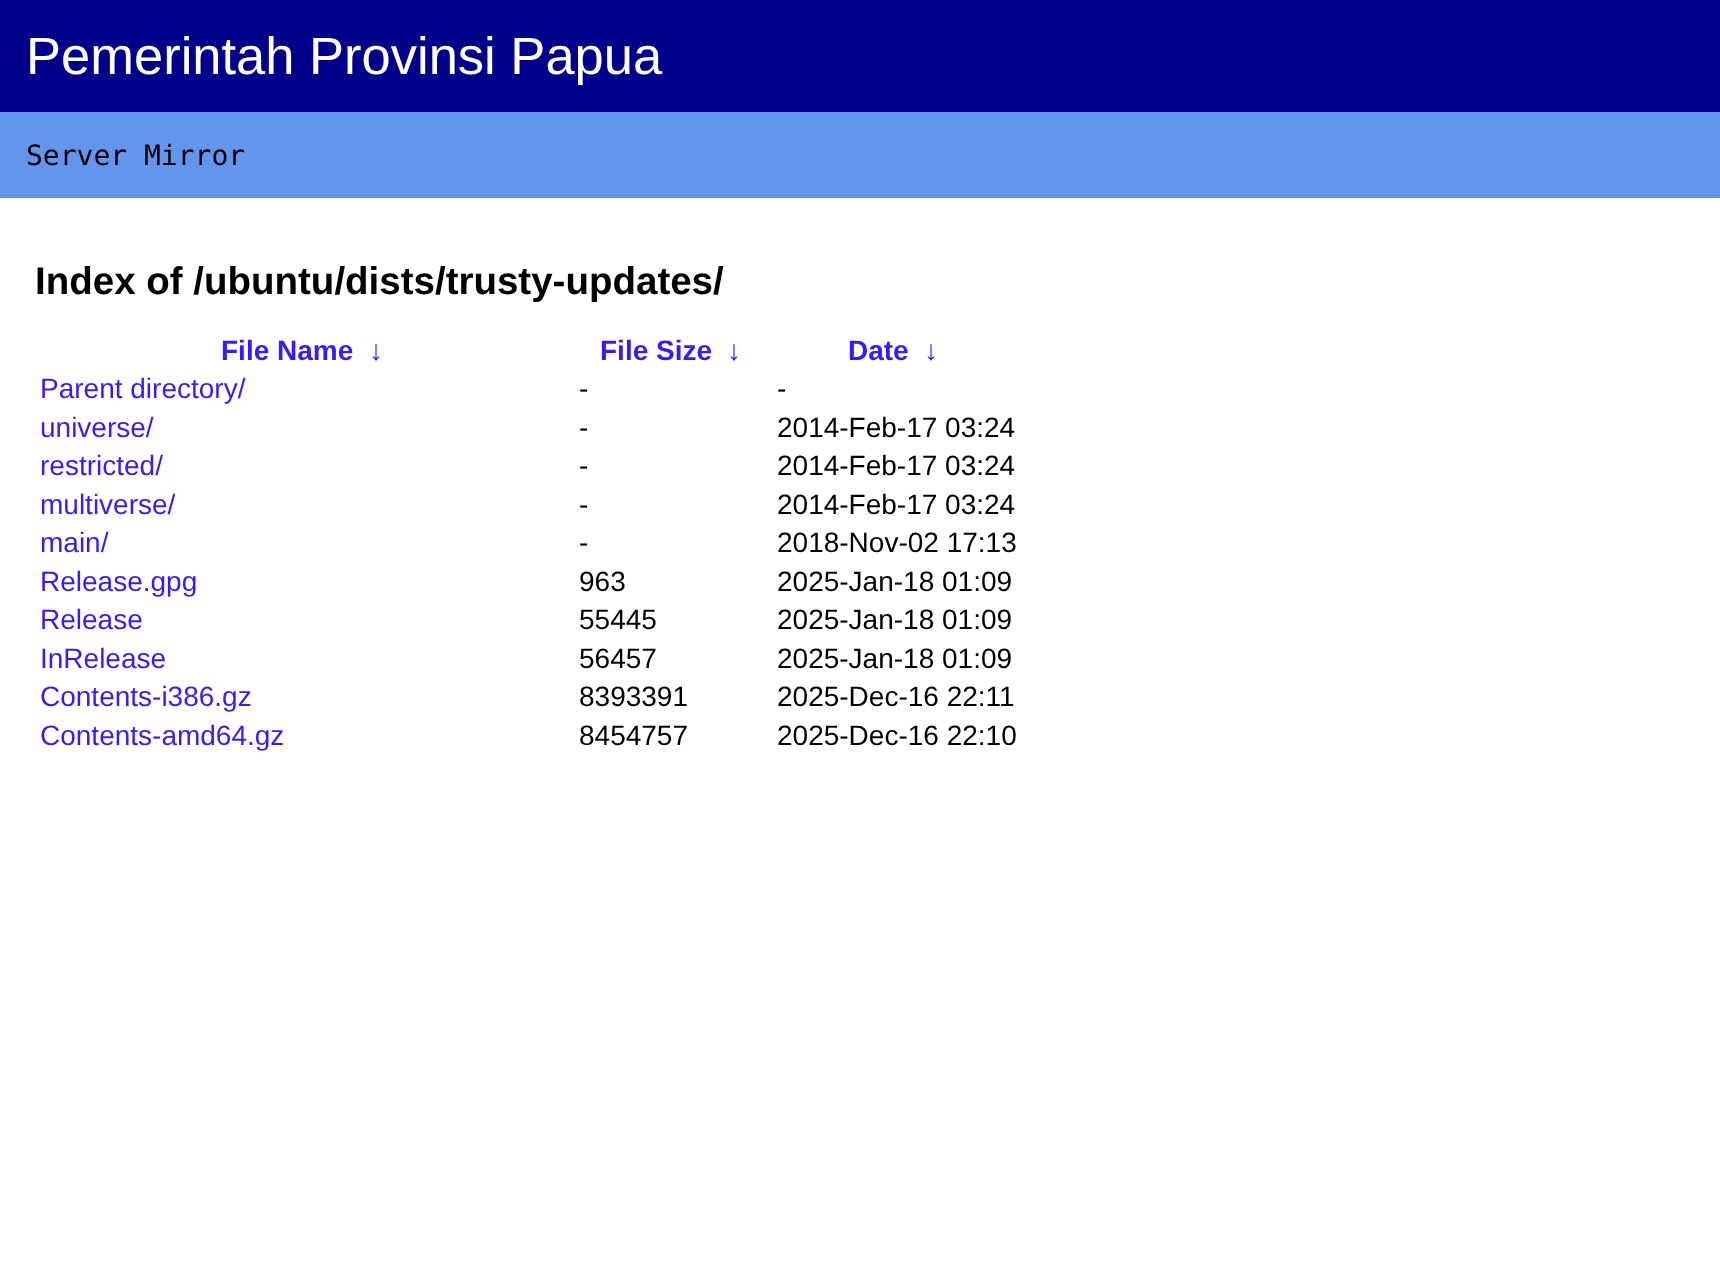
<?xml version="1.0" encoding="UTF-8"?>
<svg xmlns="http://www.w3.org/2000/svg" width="1720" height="1284">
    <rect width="100%" height="100%" fill="#FFFFFF"/>
    <rect x="0" y="0" width="1720" height="112" fill="#00008B"/>
    <text x="26" y="74" font-family="Liberation Sans" font-size="52.5" fill="#FFFFFF">Pemerintah Provinsi Papua</text>
    <rect x="0" y="112" width="1720" height="86" fill="#6495ED"/>
    <text x="26" y="165" font-family="DejaVu Sans Mono" font-size="28" fill="#000000">Server Mirror</text>
    <text x="35" y="294" font-family="Liberation Sans" font-size="38.5" font-weight="700" fill="#000000">Index of /ubuntu/dists/trusty-updates/</text>
    <text x="221" y="360" font-family="Liberation Sans" font-size="28" font-weight="700" fill="#371AFF">File Name</text>
    <text x="369" y="360" font-family="Liberation Sans" font-size="28" font-weight="700" fill="#371AFF">↓</text>
    <text x="600" y="360" font-family="Liberation Sans" font-size="28" font-weight="700" fill="#371AFF">File Size</text>
    <text x="727" y="360" font-family="Liberation Sans" font-size="28" font-weight="700" fill="#371AFF">↓</text>
    <text x="848" y="360" font-family="Liberation Sans" font-size="28" font-weight="700" fill="#371AFF">Date</text>
    <text x="924" y="360" font-family="Liberation Sans" font-size="28" font-weight="700" fill="#371AFF">↓</text>
    <text x="40" y="398" font-family="Liberation Sans" font-size="28" fill="#371AFF">Parent directory/</text>
    <text x="579" y="398" font-family="Liberation Sans" font-size="28" fill="#000000">-</text>
    <text x="777" y="398" font-family="Liberation Sans" font-size="28" fill="#000000">-</text>
    <text x="40" y="437" font-family="Liberation Sans" font-size="28" fill="#371AFF">universe/</text>
    <text x="579" y="437" font-family="Liberation Sans" font-size="28" fill="#000000">-</text>
    <text x="777" y="437" font-family="Liberation Sans" font-size="28" fill="#000000">2014-Feb-17 03:24</text>
    <text x="40" y="475" font-family="Liberation Sans" font-size="28" fill="#371AFF">restricted/</text>
    <text x="579" y="475" font-family="Liberation Sans" font-size="28" fill="#000000">-</text>
    <text x="777" y="475" font-family="Liberation Sans" font-size="28" fill="#000000">2014-Feb-17 03:24</text>
    <text x="40" y="514" font-family="Liberation Sans" font-size="28" fill="#371AFF">multiverse/</text>
    <text x="579" y="514" font-family="Liberation Sans" font-size="28" fill="#000000">-</text>
    <text x="777" y="514" font-family="Liberation Sans" font-size="28" fill="#000000">2014-Feb-17 03:24</text>
    <text x="40" y="552" font-family="Liberation Sans" font-size="28" fill="#371AFF">main/</text>
    <text x="579" y="552" font-family="Liberation Sans" font-size="28" fill="#000000">-</text>
    <text x="777" y="552" font-family="Liberation Sans" font-size="28" fill="#000000">2018-Nov-02 17:13</text>
    <text x="40" y="591" font-family="Liberation Sans" font-size="28" fill="#371AFF">Release.gpg</text>
    <text x="579" y="591" font-family="Liberation Sans" font-size="28" fill="#000000">963</text>
    <text x="777" y="591" font-family="Liberation Sans" font-size="28" fill="#000000">2025-Jan-18 01:09</text>
    <text x="40" y="629" font-family="Liberation Sans" font-size="28" fill="#371AFF">Release</text>
    <text x="579" y="629" font-family="Liberation Sans" font-size="28" fill="#000000">55445</text>
    <text x="777" y="629" font-family="Liberation Sans" font-size="28" fill="#000000">2025-Jan-18 01:09</text>
    <text x="40" y="668" font-family="Liberation Sans" font-size="28" fill="#371AFF">InRelease</text>
    <text x="579" y="668" font-family="Liberation Sans" font-size="28" fill="#000000">56457</text>
    <text x="777" y="668" font-family="Liberation Sans" font-size="28" fill="#000000">2025-Jan-18 01:09</text>
    <text x="40" y="706" font-family="Liberation Sans" font-size="28" fill="#371AFF">Contents-i386.gz</text>
    <text x="579" y="706" font-family="Liberation Sans" font-size="28" fill="#000000">8393391</text>
    <text x="777" y="706" font-family="Liberation Sans" font-size="28" fill="#000000">2025-Dec-16 22:11</text>
    <text x="40" y="745" font-family="Liberation Sans" font-size="28" fill="#371AFF">Contents-amd64.gz</text>
    <text x="579" y="745" font-family="Liberation Sans" font-size="28" fill="#000000">8454757</text>
    <text x="777" y="745" font-family="Liberation Sans" font-size="28" fill="#000000">2025-Dec-16 22:10</text>
</svg>
